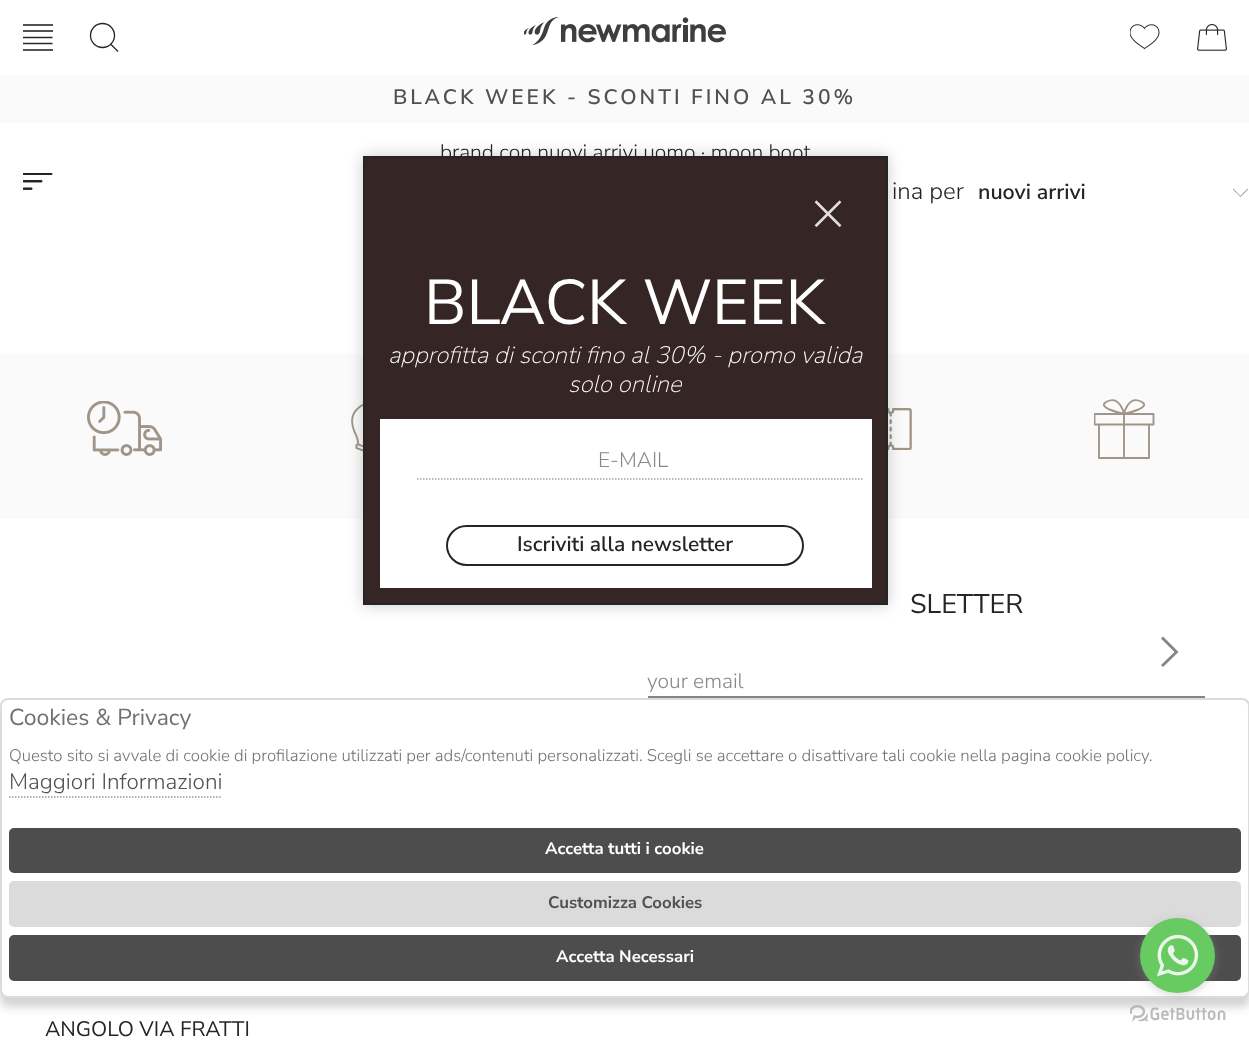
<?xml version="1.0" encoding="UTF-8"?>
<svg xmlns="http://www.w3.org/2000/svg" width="1249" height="1042">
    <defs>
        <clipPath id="clip1"><rect x="23" y="24" width="30" height="27"/></clipPath>
        <clipPath id="clip2"><rect x="1094" y="399" width="61" height="60"/></clipPath>
        <filter id="blur1" x="-50%" y="-200%" width="200%" height="500%"><feGaussianBlur stdDeviation="7.5"/></filter>
        <filter id="blur2" x="-50%" y="-200%" width="200%" height="500%"><feGaussianBlur stdDeviation="4.5"/></filter>
        <filter id="blur3" x="-50%" y="-200%" width="200%" height="500%"><feGaussianBlur stdDeviation="5"/></filter>
    </defs>
    <rect width="100%" height="100%" fill="#FFFFFF"/>
    <rect x="23" y="24" width="30" height="2" fill="#535353"/>
    <rect x="23" y="30" width="30" height="2" fill="#535353"/>
    <g clip-path="url(#clip1)">
        <path d="M 22.5 37.5 H 52.5 M 22.5 43.5 H 52.5" fill="none" stroke="#282828" stroke-width="1.6"/>
    </g>
    <rect x="23" y="49" width="30" height="2" fill="#535353"/>
    <circle cx="102.5" cy="35.5" r="12" fill="none" stroke="#252525" stroke-width="1.3"/>
    <path d="M 111 44.5 L 118 51.5" fill="none" stroke="#252525" stroke-width="1.3"/>
    <image x="524" y="17" width="202" height="28" href="img_01.png"/>
    <image x="1130" y="24" width="30" height="26" href="img_02.png"/>
    <image x="1197" y="24" width="30" height="27" href="img_03.png"/>
    <rect x="0" y="75" width="1249" height="48" fill="#FAFAFA"/>
    <text x="393" y="104" font-family="Nunito Sans" font-size="21" font-weight="600" letter-spacing="3" fill="#515151">BLACK WEEK - SCONTI FINO AL 30%</text>
    <text x="440" y="159" font-family="Nunito Sans" font-size="21" font-weight="300" fill="#252525">brand con nuovi arrivi uomo · moon boot</text>
    <image x="23" y="173" width="30" height="17" href="img_04.png"/>
    <text x="892" y="199" font-family="Nunito Sans" font-size="24" font-weight="300" fill="#252525">ina per</text>
    <image x="1233" y="189" width="15" height="8" href="img_05.png"/>
    <text x="978" y="199" font-family="Nunito Sans" font-size="21.5" font-weight="600" fill="#252525">nuovi arrivi</text>
    <rect x="0" y="354" width="1249" height="165" fill="#FAFAFA"/>
    <image x="87" y="401" width="75" height="55" href="img_06.png"/>
    <image x="351" y="403" width="12" height="49" href="img_07.png"/>
    <image x="888" y="408" width="24" height="42" href="img_08.png"/>
    <g clip-path="url(#clip2)">
        <path d="M 1099 424.5 V 458 H 1149 V 424.5 M 1094.5 414 V 424.5 H 1153.5 V 414 Z M 1124 414 C 1124 414 1120 395 1107 401.5 C 1094.5 407.5 1124 414 1124 414 C 1124 414 1128 395 1141 401.5 C 1153.5 407.5 1124 414 1124 414 M 1124 414 V 458" fill="none" stroke="#A19589" stroke-width="1.9" stroke-linecap="round" stroke-linejoin="round"/>
    </g>
    <text x="910" y="613" font-family="Nunito Sans" font-size="27" fill="#252525">SLETTER</text>
    <path d="M 1163 636.5 L 1161 638.5 L 1174.5 652 L 1161 665 L 1163 667 L 1178.5 652 Z" fill="#858585"/>
    <rect x="648" y="696" width="557" height="2" fill="#858585"/>
    <text x="647" y="688" font-family="Nunito Sans" font-size="21" font-weight="300" fill="#898989">your email</text>
    <text x="45" y="1036" font-family="Nunito Sans" font-size="21" fill="#252525">ANGOLO VIA FRATTI</text>
    <rect x="363" y="156" width="525" height="449" fill="#252525" fill-opacity="0.2" filter="url(#blur1)"/>
    <rect x="364" y="157" width="523" height="447" fill="#362525" stroke="#252525" stroke-width="2"/>
    <image x="814" y="200" width="28" height="28" href="img_09.png"/>
    <text x="424" y="324" font-family="Nunito Sans" font-size="63" fill="#FFFFFF">BLACK WEEK</text>
    <text x="388" y="363" font-family="Nunito Sans" font-size="24" font-weight="200" font-style="italic" fill="#FFFFFF">approfitta di sconti fino al 30% - promo valida</text>
    <text x="568" y="392" font-family="Nunito Sans" font-size="24" font-weight="200" font-style="italic" fill="#FFFFFF">solo online</text>
    <rect x="380" y="419" width="492" height="169" fill="#FFFFFF"/>
    <path d="M 417 479 H 864" fill="none" stroke="#A4A4A4" stroke-width="1.5" stroke-dasharray="1.5 1.5"/>
    <text x="598" y="467" font-family="Nunito Sans" font-size="21" font-weight="300" fill="#898989">E-MAIL</text>
    <rect x="447" y="526" width="356" height="39" rx="19.5" fill="none" stroke="#252525" stroke-width="2"/>
    <text x="517" y="551" font-family="Nunito Sans" font-size="21" font-weight="600" fill="#252525">Iscriviti alla newsletter</text>
    <rect x="0" y="707" width="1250" height="300" rx="8" fill="#4D4D4D" fill-opacity="0.25" filter="url(#blur2)"/>
    <rect x="1" y="699" width="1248" height="298" rx="7" fill="#FFFFFF" stroke="#DBDBDB" stroke-width="2"/>
    <text x="9" y="725" font-family="Nunito Sans" font-size="23" fill="#717171">Cookies &amp; Privacy</text>
    <text x="9" y="761" font-family="Nunito Sans" font-size="16.8" font-weight="300" fill="#717171">Questo sito si avvale di cookie di profilazione utilizzati per ads/contenuti personalizzati. Scegli se accettare o disattivare tali cookie nella pagina cookie policy.</text>
    <text x="9" y="789" font-family="Nunito Sans" font-size="22.5" font-weight="300" fill="#515151">Maggiori Informazioni</text>
    <path d="M 9 797 H 222" fill="none" stroke="#969696" stroke-width="1.5" stroke-dasharray="1.5 1.5"/>
    <rect x="9" y="828" width="1232" height="45" rx="5" fill="#4D4D4D"/>
    <text x="545" y="854" font-family="Nunito Sans" font-size="16.8" font-weight="700" fill="#FFFFFF">Accetta tutti i cookie</text>
    <rect x="9" y="881" width="1232" height="46" rx="5" fill="#DBDBDB"/>
    <text x="548" y="908" font-family="Nunito Sans" font-size="16.8" font-weight="700" fill="#515151">Customizza Cookies</text>
    <rect x="9" y="935" width="1232" height="46" rx="5" fill="#4D4D4D"/>
    <text x="556" y="962" font-family="Nunito Sans" font-size="16.8" font-weight="700" fill="#FFFFFF">Accetta Necessari</text>
    <image x="1130" y="1005" width="96" height="17" href="img_11.png"/>
    <rect x="1140" y="920" width="75" height="75" rx="37.5" fill="#999999" fill-opacity="0.4" filter="url(#blur3)"/>
    <circle cx="1177.5" cy="955.5" r="37.5" fill="#67CB62"/>
    <image x="1157" y="934" width="42" height="43" href="img_10.png"/>
</svg>
